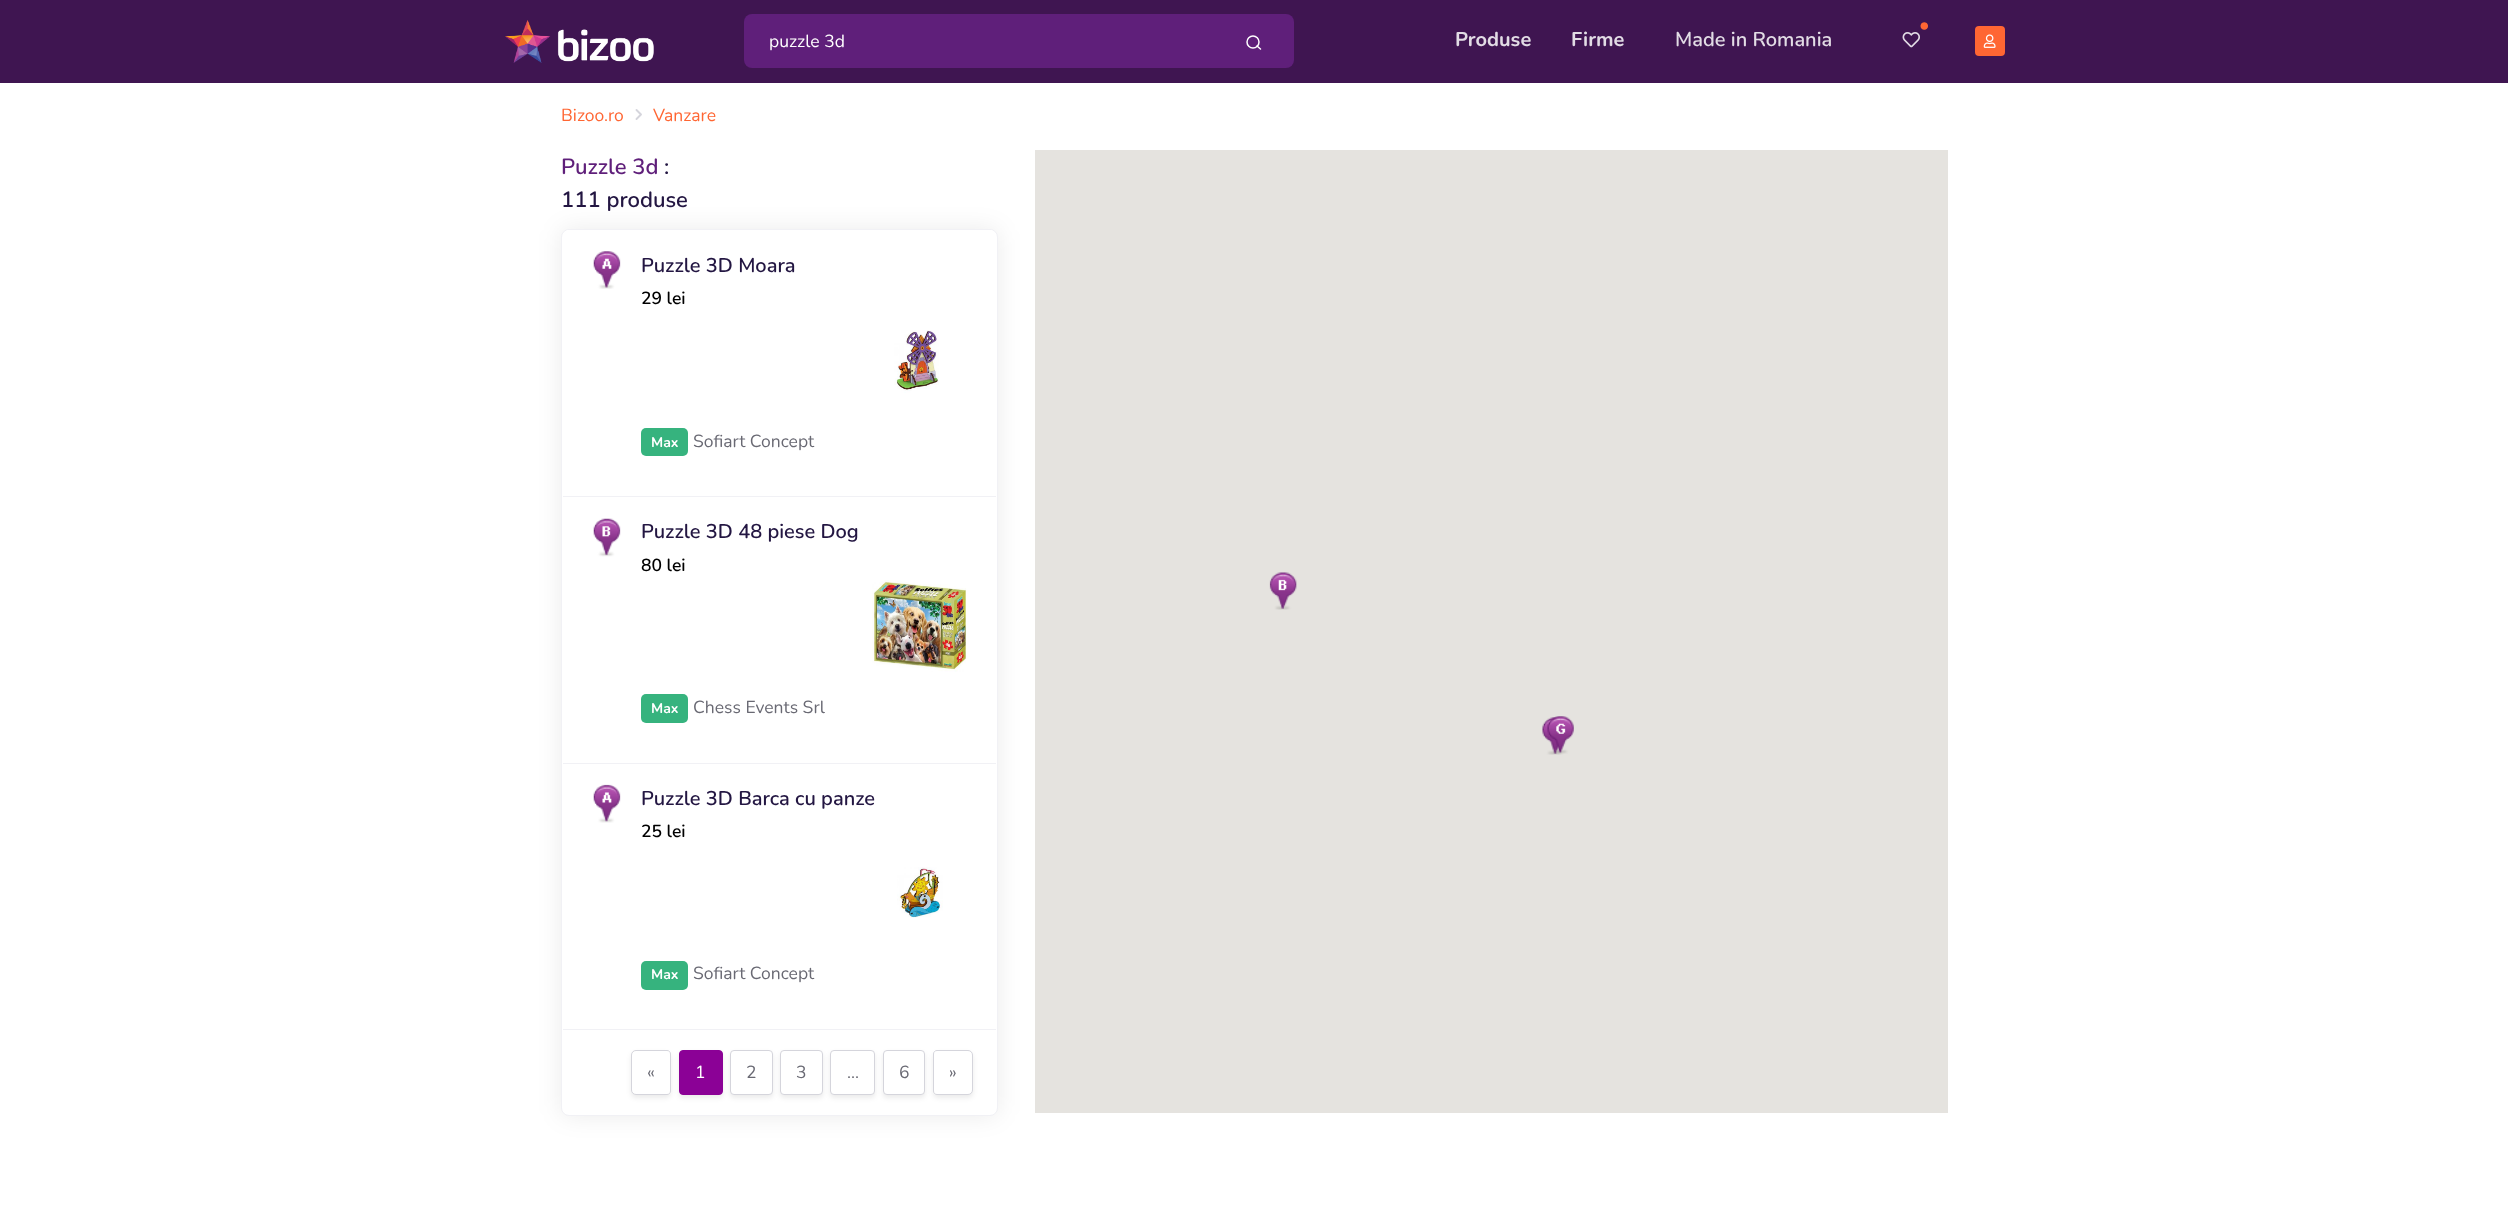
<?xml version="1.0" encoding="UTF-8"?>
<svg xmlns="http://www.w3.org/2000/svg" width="2508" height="1223">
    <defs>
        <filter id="blur1" x="-50%" y="-200%" width="200%" height="500%"><feGaussianBlur stdDeviation="12.5"/></filter>
        <filter id="blur2" x="-50%" y="-200%" width="200%" height="500%"><feGaussianBlur stdDeviation="2.5"/></filter>
    </defs>
    <rect width="100%" height="100%" fill="#FFFFFF"/>
    <rect x="0" y="0" width="2508" height="83" fill="#3F1551"/>
    <image x="505" y="20" width="149" height="43" href="img_01.png"/>
    <text x="1919" y="31" font-family="Liberation Sans" font-size="17.5" font-weight="700" fill="#FF6633">●</text>
    <image x="1902" y="32" width="18" height="16" href="img_02.png"/>
    <rect x="1975" y="26" width="30" height="30" rx="4" fill="#FF6633"/>
    <image x="1983" y="34" width="13" height="14" href="img_03.png"/>
    <rect x="744" y="14" width="550" height="54" rx="8" fill="#5F1F7A"/>
    <text x="769" y="47" font-family="Nunito" font-size="17.5" fill="#FFFFFF">puzzle 3d</text>
    <circle cx="1253" cy="42" r="6" fill="none" stroke="#FFFFFF" stroke-width="1.5"/>
    <path d="M 1260.5 49 L 1257 46" fill="none" stroke="#FFFFFF" stroke-width="1.5" stroke-linecap="round" stroke-linejoin="round"/>
    <text x="1455" y="46" font-family="Nunito" font-size="20" font-weight="700" fill="#E2DCE5">Produse</text>
    <text x="1571" y="46" font-family="Nunito" font-size="20" font-weight="700" fill="#E2DCE5">Firme</text>
    <text x="1675" y="46" font-family="Nunito" font-size="20" font-weight="600" fill="#E2DCE5">Made in Romania</text>
    <text x="561" y="121" font-family="Nunito" font-size="17.5" fill="#FF6633">Bizoo.ro</text>
    <path d="M 636.5 119 L 641 114.5 L 636.5 110" fill="none" stroke="#D5D5DC" stroke-width="1.9" stroke-linecap="round" stroke-linejoin="round"/>
    <text x="653" y="121" font-family="Nunito" font-size="17.5" fill="#FF6633">Vanzare</text>
    <text x="561" y="174" font-family="Nunito" font-size="22" font-weight="600" fill="#5F1F7A">Puzzle 3d</text>
    <text x="664" y="174" font-family="Nunito" font-size="22" font-weight="600" fill="#231642">:</text>
    <text x="561" y="207" font-family="Nunito" font-size="22" font-weight="600" fill="#231642">111 produse</text>
    <rect x="561" y="229" width="437" height="887" rx="8" fill="#000000" fill-opacity="0.08" filter="url(#blur1)"/>
    <rect x="561.5" y="229.5" width="436" height="886" rx="7.5" fill="#FFFFFF" stroke="#F1F1F5"/>
    <rect x="563" y="1029" width="433" height="1" fill="#F1F1F5"/>
    <path d="M 569 230 H 990 C 993.5 230 996 232.5 996 236 V 496 H 563 V 236 C 563 232.5 565.5 230 569 230 Z" fill="#FFFFFF"/>
    <rect x="563" y="496" width="433" height="1" fill="#F1F1F5"/>
    <image x="593" y="251" width="28" height="38" href="img_04.png"/>
    <text x="641" y="272" font-family="Nunito" font-size="20" font-weight="600" fill="#231642">Puzzle 3D Moara</text>
    <text x="641" y="304" font-family="Nunito" font-size="17.5" font-weight="600" fill="#000000">29 lei</text>
    <image x="894" y="330" width="45" height="63" href="img_05.png"/>
    <rect x="641" y="428" width="47" height="28" rx="5" fill="#36B37E"/>
    <text x="651" y="447" font-family="Nunito" font-size="14" font-weight="700" fill="#FFFFFF">Max</text>
    <text x="693" y="447" font-family="Nunito" font-size="17.5" fill="#696973">Sofiart Concept</text>
    <rect x="563" y="763" width="433" height="1" fill="#F1F1F5"/>
    <image x="593" y="518" width="28" height="39" href="img_06.png"/>
    <text x="641" y="538" font-family="Nunito" font-size="20" font-weight="600" fill="#231642">Puzzle 3D 48 piese Dog</text>
    <text x="641" y="571" font-family="Nunito" font-size="17.5" font-weight="600" fill="#000000">80 lei</text>
    <image x="872" y="580" width="95" height="92" href="img_07.png"/>
    <rect x="641" y="694" width="47" height="29" rx="5" fill="#36B37E"/>
    <text x="651" y="713" font-family="Nunito" font-size="14" font-weight="700" fill="#FFFFFF">Max</text>
    <text x="693" y="713" font-family="Nunito" font-size="17.5" fill="#696973">Chess Events Srl</text>
    <image x="593" y="784" width="28" height="39" href="img_08.png"/>
    <text x="641" y="805" font-family="Nunito" font-size="20" font-weight="600" fill="#231642">Puzzle 3D Barca cu panze</text>
    <text x="641" y="837" font-family="Nunito" font-size="17.5" font-weight="600" fill="#000000">25 lei</text>
    <image x="897" y="867" width="46" height="51" href="img_09.png"/>
    <rect x="641" y="961" width="47" height="29" rx="5" fill="#36B37E"/>
    <text x="651" y="979" font-family="Nunito" font-size="14" font-weight="700" fill="#FFFFFF">Max</text>
    <text x="693" y="979" font-family="Nunito" font-size="17.5" fill="#696973">Sofiart Concept</text>
    <rect x="631" y="1053" width="40" height="45" rx="5" fill="#000000" fill-opacity="0.08" filter="url(#blur2)"/>
    <path d="M 636 1050.5 H 667 C 669 1050.5 670.5 1052 670.5 1054 V 1091 C 670.5 1093 669 1094.5 667 1094.5 H 636 C 633.5 1094.5 631.5 1092.5 631.5 1090 V 1055 C 631.5 1052.5 633.5 1050.5 636 1050.5 Z" fill="#FFFFFF" stroke="#D5D5DC"/>
    <text x="647" y="1078" font-family="Nunito" font-size="17.5" fill="#696973">«</text>
    <rect x="730" y="1053" width="43" height="45" rx="4" fill="#000000" fill-opacity="0.08" filter="url(#blur2)"/>
    <rect x="730.5" y="1050.5" width="42" height="44" rx="3.5" fill="#FFFFFF" stroke="#D5D5DC"/>
    <rect x="679" y="1053" width="44" height="45" rx="4" fill="#000000" fill-opacity="0.08" filter="url(#blur2)"/>
    <rect x="679.5" y="1050.5" width="43" height="44" rx="3.5" fill="#8B0196" stroke="#8B0196"/>
    <text x="695" y="1078" font-family="Nunito" font-size="17.5" fill="#FFFFFF">1</text>
    <text x="746" y="1078" font-family="Nunito" font-size="17.5" fill="#696973">2</text>
    <rect x="780" y="1053" width="43" height="45" rx="4" fill="#000000" fill-opacity="0.08" filter="url(#blur2)"/>
    <rect x="780.5" y="1050.5" width="42" height="44" rx="3.5" fill="#FFFFFF" stroke="#D5D5DC"/>
    <text x="796" y="1078" font-family="Nunito" font-size="17.5" fill="#696973">3</text>
    <rect x="830" y="1053" width="45" height="45" rx="4" fill="#000000" fill-opacity="0.08" filter="url(#blur2)"/>
    <rect x="830.5" y="1050.5" width="44" height="44" rx="3.5" fill="#FFFFFF" stroke="#D5D5DC"/>
    <rect x="883" y="1053" width="42" height="45" rx="4" fill="#000000" fill-opacity="0.08" filter="url(#blur2)"/>
    <rect x="883.5" y="1050.5" width="41" height="44" rx="3.5" fill="#FFFFFF" stroke="#D5D5DC"/>
    <text x="899" y="1078" font-family="Nunito" font-size="17.5" fill="#696973">6</text>
    <rect x="933" y="1053" width="40" height="45" rx="5" fill="#000000" fill-opacity="0.08" filter="url(#blur2)"/>
    <path d="M 937 1050.5 H 968 C 970.5 1050.5 972.5 1052.5 972.5 1055 V 1090 C 972.5 1092.5 970.5 1094.5 968 1094.5 H 937 C 935 1094.5 933.5 1093 933.5 1091 V 1054 C 933.5 1052 935 1050.5 937 1050.5 Z" fill="#FFFFFF" stroke="#D5D5DC"/>
    <text x="949" y="1078" font-family="Nunito" font-size="17.5" fill="#696973">»</text>
    <text x="847" y="1078" font-family="Nunito" font-size="17.5" fill="#696973">...</text>
    <rect x="1035" y="150" width="913" height="963" fill="#E5E3DF"/>
    <image x="1269" y="572" width="28" height="38" href="img_10.png"/>
    <image x="1542" y="717" width="25" height="38" href="img_12.png"/>
    <image x="1547" y="716" width="27" height="38" href="img_11.png"/>
</svg>
